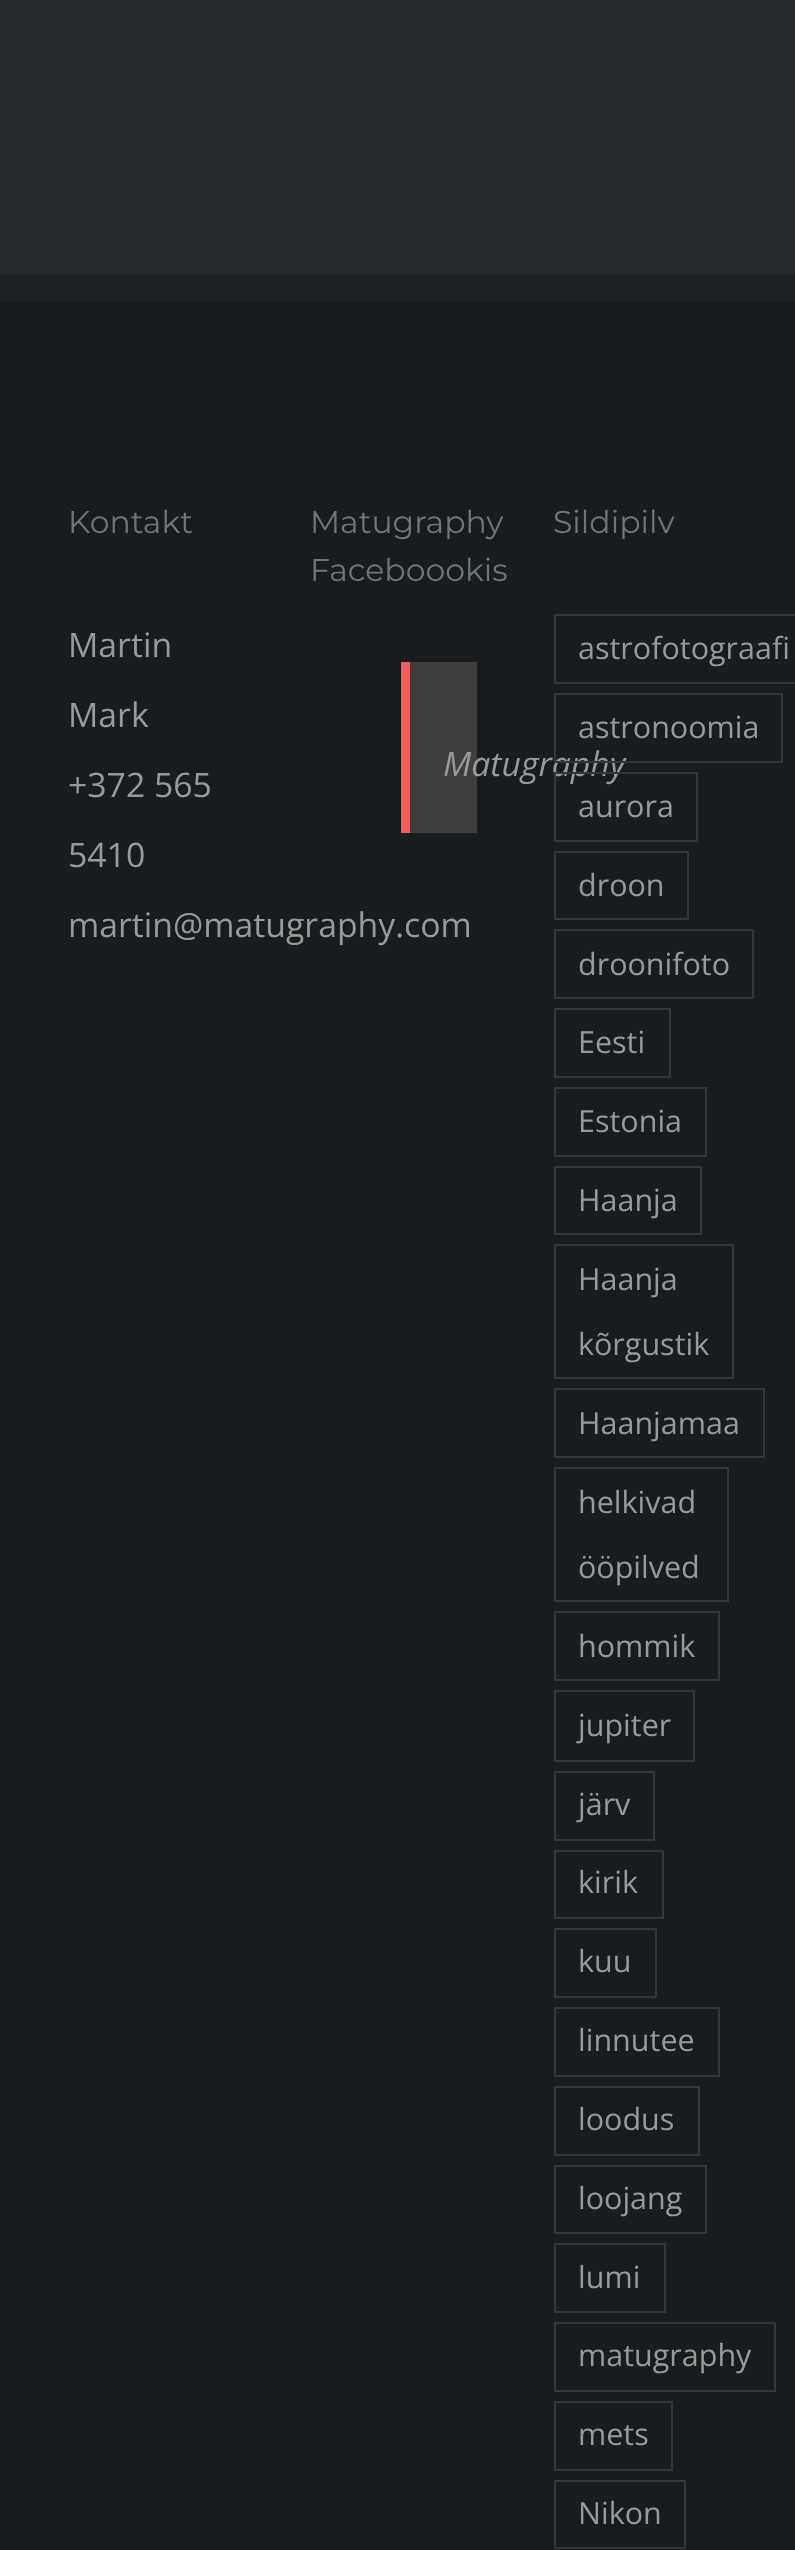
<?xml version="1.0" encoding="UTF-8"?>
<svg xmlns="http://www.w3.org/2000/svg" width="795" height="2550">
    <rect width="100%" height="100%" fill="#25292B"/>
    <rect x="0" y="302" width="795" height="2248" fill="#191C1E"/>
    <rect x="0" y="275" width="795" height="27" fill="#1E2123"/>
    <text x="68" y="533" font-family="Montserrat" font-size="31.5" fill="#6C777B">Kontakt</text>
    <text x="68" y="657" font-family="Open Sans" font-size="33.75" fill="#999999">Martin</text>
    <text x="68" y="727" font-family="Open Sans" font-size="33.75" fill="#999999">Mark</text>
    <text x="68" y="797" font-family="Open Sans" font-size="33.75" fill="#999999">+372 565</text>
    <text x="68" y="867" font-family="Open Sans" font-size="33.75" fill="#999999">5410</text>
    <text x="68" y="937" font-family="Open Sans" font-size="33.75" fill="#999999">martin@matugraphy.com</text>
    <text font-family="Montserrat" font-size="31.5" fill="#6C777B">
        <tspan x="310" y="533">Matugraphy</tspan>
        <tspan x="310" y="581">Faceboookis</tspan>
    </text>
    <rect x="410" y="662" width="67" height="171" fill="#3E3E3E"/>
    <rect x="401" y="662" width="9" height="171" fill="#EE6059"/>
    <text x="443" y="776" font-family="Open Sans" font-size="33.75" font-style="italic" fill="#999999">Matugraphy</text>
    <text x="553" y="533" font-family="Montserrat" font-size="31.5" fill="#6C777B">Sildipilv</text>
    <rect x="555" y="615" width="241" height="68" fill="none" stroke="#333638" stroke-width="2"/>
    <text x="578" y="659" font-family="Open Sans" font-size="30.5" fill="#999999">astrofotograafi</text>
    <rect x="555" y="694" width="227" height="68" fill="none" stroke="#333638" stroke-width="2"/>
    <text x="578" y="738" font-family="Open Sans" font-size="30.5" fill="#999999">astronoomia</text>
    <rect x="555" y="773" width="142" height="68" fill="none" stroke="#333638" stroke-width="2"/>
    <text x="578" y="817" font-family="Open Sans" font-size="30.5" fill="#999999">aurora</text>
    <rect x="555" y="852" width="133" height="67" fill="none" stroke="#333638" stroke-width="2"/>
    <text x="578" y="896" font-family="Open Sans" font-size="30.5" fill="#999999">droon</text>
    <rect x="555" y="930" width="198" height="68" fill="none" stroke="#333638" stroke-width="2"/>
    <text x="578" y="975" font-family="Open Sans" font-size="30.5" fill="#999999">droonifoto</text>
    <rect x="555" y="1009" width="115" height="68" fill="none" stroke="#333638" stroke-width="2"/>
    <text x="578" y="1053" font-family="Open Sans" font-size="30.5" fill="#999999">Eesti</text>
    <rect x="555" y="1088" width="151" height="68" fill="none" stroke="#333638" stroke-width="2"/>
    <text x="578" y="1132" font-family="Open Sans" font-size="30.5" fill="#999999">Estonia</text>
    <rect x="555" y="1167" width="146" height="67" fill="none" stroke="#333638" stroke-width="2"/>
    <text x="578" y="1211" font-family="Open Sans" font-size="30.5" fill="#999999">Haanja</text>
    <rect x="555" y="1245" width="178" height="133" fill="none" stroke="#333638" stroke-width="2"/>
    <text x="578" y="1290" font-family="Open Sans" font-size="30.5" fill="#999999">Haanja</text>
    <text x="578" y="1355" font-family="Open Sans" font-size="30.5" fill="#999999">kõrgustik</text>
    <rect x="555" y="1389" width="209" height="68" fill="none" stroke="#333638" stroke-width="2"/>
    <text x="578" y="1434" font-family="Open Sans" font-size="30.5" fill="#999999">Haanjamaa</text>
    <rect x="555" y="1468" width="173" height="133" fill="none" stroke="#333638" stroke-width="2"/>
    <text x="578" y="1513" font-family="Open Sans" font-size="30.5" fill="#999999">helkivad</text>
    <text x="578" y="1578" font-family="Open Sans" font-size="30.5" fill="#999999">ööpilved</text>
    <rect x="555" y="1612" width="164" height="68" fill="none" stroke="#333638" stroke-width="2"/>
    <text x="578" y="1657" font-family="Open Sans" font-size="30.5" fill="#999999">hommik</text>
    <rect x="555" y="1691" width="139" height="70" fill="none" stroke="#333638" stroke-width="2"/>
    <text x="578" y="1736" font-family="Open Sans" font-size="30.5" fill="#999999">jupiter</text>
    <rect x="555" y="1772" width="99" height="68" fill="none" stroke="#333638" stroke-width="2"/>
    <text x="578" y="1815" font-family="Open Sans" font-size="30.5" fill="#999999">järv</text>
    <rect x="555" y="1851" width="108" height="67" fill="none" stroke="#333638" stroke-width="2"/>
    <text x="578" y="1893" font-family="Open Sans" font-size="30.5" fill="#999999">kirik</text>
    <rect x="555" y="1929" width="101" height="68" fill="none" stroke="#333638" stroke-width="2"/>
    <text x="578" y="1972" font-family="Open Sans" font-size="30.5" fill="#999999">kuu</text>
    <rect x="555" y="2008" width="164" height="68" fill="none" stroke="#333638" stroke-width="2"/>
    <text x="578" y="2051" font-family="Open Sans" font-size="30.5" fill="#999999">linnutee</text>
    <rect x="555" y="2087" width="144" height="68" fill="none" stroke="#333638" stroke-width="2"/>
    <text x="578" y="2130" font-family="Open Sans" font-size="30.5" fill="#999999">loodus</text>
    <rect x="555" y="2166" width="151" height="67" fill="none" stroke="#333638" stroke-width="2"/>
    <text x="578" y="2209" font-family="Open Sans" font-size="30.5" fill="#999999">loojang</text>
    <rect x="555" y="2244" width="110" height="68" fill="none" stroke="#333638" stroke-width="2"/>
    <text x="578" y="2288" font-family="Open Sans" font-size="30.5" fill="#999999">lumi</text>
    <rect x="555" y="2323" width="220" height="68" fill="none" stroke="#333638" stroke-width="2"/>
    <text x="578" y="2366" font-family="Open Sans" font-size="30.5" fill="#999999">matugraphy</text>
    <rect x="555" y="2402" width="117" height="68" fill="none" stroke="#333638" stroke-width="2"/>
    <text x="578" y="2445" font-family="Open Sans" font-size="30.5" fill="#999999">mets</text>
    <rect x="555" y="2481" width="130" height="67" fill="none" stroke="#333638" stroke-width="2"/>
    <text x="578" y="2524" font-family="Open Sans" font-size="30.5" fill="#999999">Nikon</text>
</svg>
